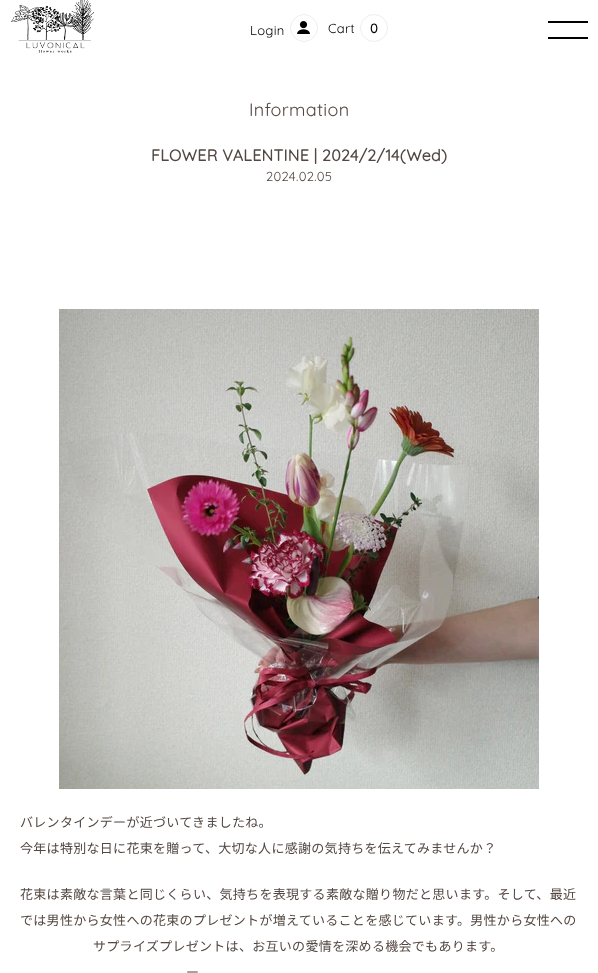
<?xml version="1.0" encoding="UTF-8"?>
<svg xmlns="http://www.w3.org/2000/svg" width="598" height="973">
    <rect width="100%" height="100%" fill="#FFFFFF"/>
    <image x="11" y="0" width="83" height="53" href="img_01.png"/>
    <text x="250" y="35" font-family="Quicksand" font-size="13" font-weight="300" letter-spacing="0.3" fill="#000000">Login</text>
    <image x="297" y="21" width="13" height="13" href="img_02.png"/>
    <circle cx="304" cy="28" r="13.5" fill="none" stroke="#EEEEEE"/>
    <text x="328" y="33" font-family="Quicksand" font-size="13" font-weight="300" letter-spacing="0.3" fill="#000000">Cart</text>
    <circle cx="374" cy="28" r="13.5" fill="none" stroke="#EEEEEE"/>
    <text x="370" y="33" font-family="Quicksand" font-size="13" font-weight="700" letter-spacing="0.3" fill="#000000">0</text>
    <rect x="548" y="21" width="40" height="2" fill="#000000"/>
    <rect x="548" y="37" width="40" height="2" fill="#000000"/>
    <text x="249" y="116" font-family="Quicksand" font-size="18" font-weight="300" letter-spacing="0.3" fill="#534741">Information</text>
    <text x="151" y="161" font-family="Quicksand" font-size="16" font-weight="700" letter-spacing="0.3" fill="#534741">FLOWER VALENTINE | 2024/2/14(Wed)</text>
    <text x="266" y="181" font-family="Quicksand" font-size="13" font-weight="300" letter-spacing="0.3" fill="#534741">2024.02.05</text>
    <image x="59" y="309" width="480" height="480" href="img_03.png"/>
    <text x="20" y="827" font-family="Noto Sans JP" font-size="13" letter-spacing="0.3" fill="#534741">バレンタインデーが近づいてきましたね。</text>
    <text x="20" y="853" font-family="Noto Sans JP" font-size="13" letter-spacing="0.3" fill="#534741">今年は特別な日に花束を贈って、大切な人に感謝の気持ちを伝えてみませんか？</text>
    <text x="20" y="899" font-family="Noto Sans JP" font-size="13" letter-spacing="0.3" fill="#534741">花束は素敵な言葉と同じくらい、気持ちを表現する素敵な贈り物だと思います。そして、最近</text>
    <text x="20" y="925" font-family="Noto Sans JP" font-size="13" letter-spacing="0.3" fill="#534741">では男性から女性への花束のプレゼントが増えていることを感じています。男性から女性への</text>
    <text x="93" y="951" font-family="Noto Sans JP" font-size="13" letter-spacing="0.3" fill="#534741">サプライズプレゼントは、お互いの愛情を深める機会でもあります。</text>
    <text x="186" y="977" font-family="Noto Sans JP" font-size="13" letter-spacing="0.3" fill="#534741">ー</text>
</svg>
